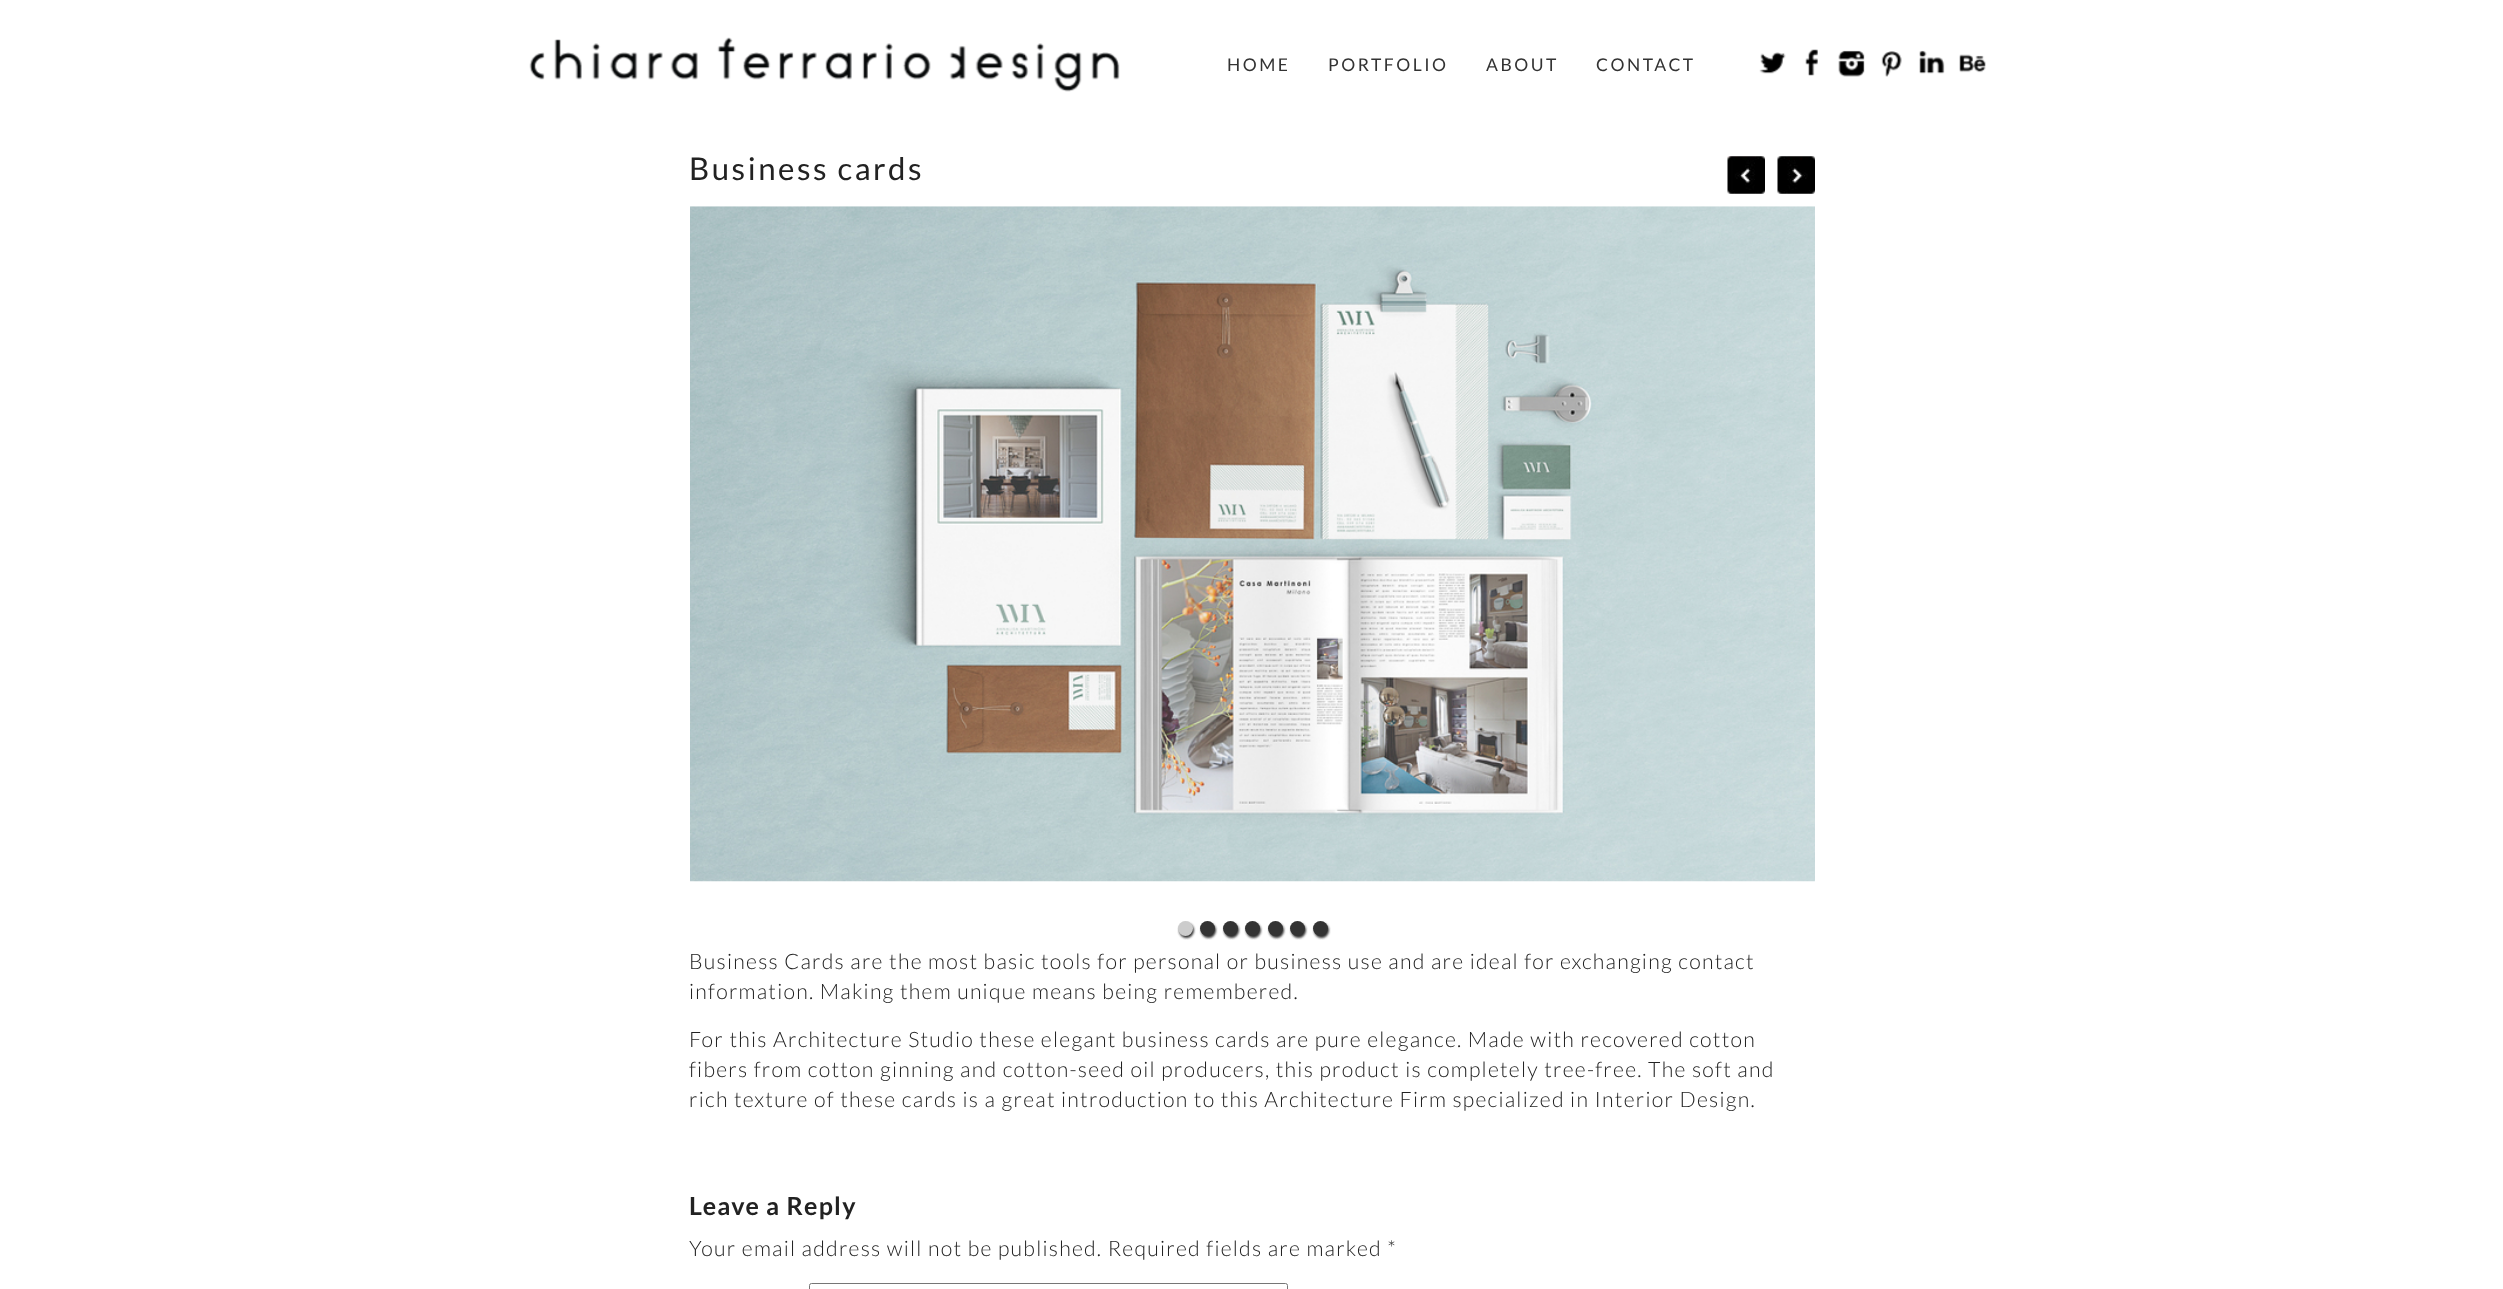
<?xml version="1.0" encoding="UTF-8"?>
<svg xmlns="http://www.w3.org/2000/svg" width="2503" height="1289">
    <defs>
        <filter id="blur1" x="-50%" y="-200%" width="200%" height="500%"><feGaussianBlur stdDeviation="1"/></filter>
    </defs>
    <rect width="100%" height="100%" fill="#FFFFFF"/>
    <image x="529" y="37" width="591" height="55" href="img_01.png"/>
    <text x="1227" y="71" font-family="Lato" font-size="17.5" letter-spacing="2.5" fill="#333333">HOME</text>
    <text x="1328" y="71" font-family="Lato" font-size="17.5" letter-spacing="2.5" fill="#333333">PORTFOLIO</text>
    <text x="1486" y="71" font-family="Lato" font-size="17.5" letter-spacing="2.5" fill="#333333">ABOUT</text>
    <text x="1596" y="71" font-family="Lato" font-size="17.5" letter-spacing="2.5" fill="#333333">CONTACT</text>
    <image x="1759" y="52" width="27" height="22" href="img_02.png"/>
    <image x="1805" y="49" width="13" height="27" href="img_03.png"/>
    <image x="1838" y="50" width="27" height="27" href="img_04.png"/>
    <image x="1881" y="51" width="21" height="26" href="img_05.png"/>
    <image x="1919" y="50" width="26" height="24" href="img_06.png"/>
    <image x="1959" y="54" width="27" height="19" href="img_07.png"/>
    <text x="689" y="180" font-family="Lato" font-size="31.25" letter-spacing="2.5" fill="#222222">Business cards</text>
    <image x="1727" y="156" width="38" height="38" href="img_08.png"/>
    <image x="1777" y="156" width="38" height="38" href="img_09.png"/>
    <image x="690" y="206" width="1125" height="676" href="img_10.png"/>
    <rect x="1179" y="923" width="15" height="15" rx="7.5" fill="#333333" filter="url(#blur1)"/>
    <circle cx="1185.5" cy="928.5" r="7.5" fill="#CCCCCC"/>
    <rect x="1201" y="923" width="15" height="15" rx="7.5" fill="#333333" filter="url(#blur1)"/>
    <circle cx="1207.5" cy="928.5" r="7.5" fill="#333333"/>
    <rect x="1224" y="923" width="15" height="15" rx="7.5" fill="#333333" filter="url(#blur1)"/>
    <circle cx="1230.5" cy="928.5" r="7.5" fill="#333333"/>
    <rect x="1246" y="923" width="15" height="15" rx="7.5" fill="#333333" filter="url(#blur1)"/>
    <circle cx="1252.5" cy="928.5" r="7.5" fill="#333333"/>
    <rect x="1269" y="923" width="15" height="15" rx="7.5" fill="#333333" filter="url(#blur1)"/>
    <circle cx="1275.5" cy="928.5" r="7.5" fill="#333333"/>
    <rect x="1291" y="923" width="15" height="15" rx="7.5" fill="#333333" filter="url(#blur1)"/>
    <circle cx="1297.5" cy="928.5" r="7.5" fill="#333333"/>
    <rect x="1314" y="923" width="15" height="15" rx="7.5" fill="#333333" filter="url(#blur1)"/>
    <circle cx="1320.5" cy="928.5" r="7.5" fill="#333333"/>
    <text font-family="Lato" font-size="21.25" font-weight="300" letter-spacing="1.25" fill="#222222">
        <tspan x="689" y="969">Business Cards are the most basic tools for personal or business use and are ideal for exchanging contact</tspan>
        <tspan x="689" y="999">information. Making them unique means being remembered.</tspan>
    </text>
    <text font-family="Lato" font-size="21.25" font-weight="300" letter-spacing="1.25" fill="#222222">
        <tspan x="689" y="1047">For this Architecture Studio these elegant business cards are pure elegance. Made with recovered cotton</tspan>
        <tspan x="689" y="1077">fibers from cotton ginning and cotton-seed oil producers, this product is completely tree-free. The soft and</tspan>
        <tspan x="689" y="1107">rich texture of these cards is a great introduction to this Architecture Firm specialized in Interior Design.</tspan>
    </text>
    <text x="689" y="1215" font-family="Lato" font-size="25" font-weight="700" letter-spacing="1.25" fill="#222222">Leave a Reply</text>
    <text x="689" y="1256" font-family="Lato" font-size="21.25" font-weight="300" letter-spacing="1.25" fill="#222222">Your email address will not be published. Required fields are marked *</text>
    <rect x="809.5" y="1283.5" width="478" height="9" rx="2" fill="none" stroke="#767676"/>
</svg>
